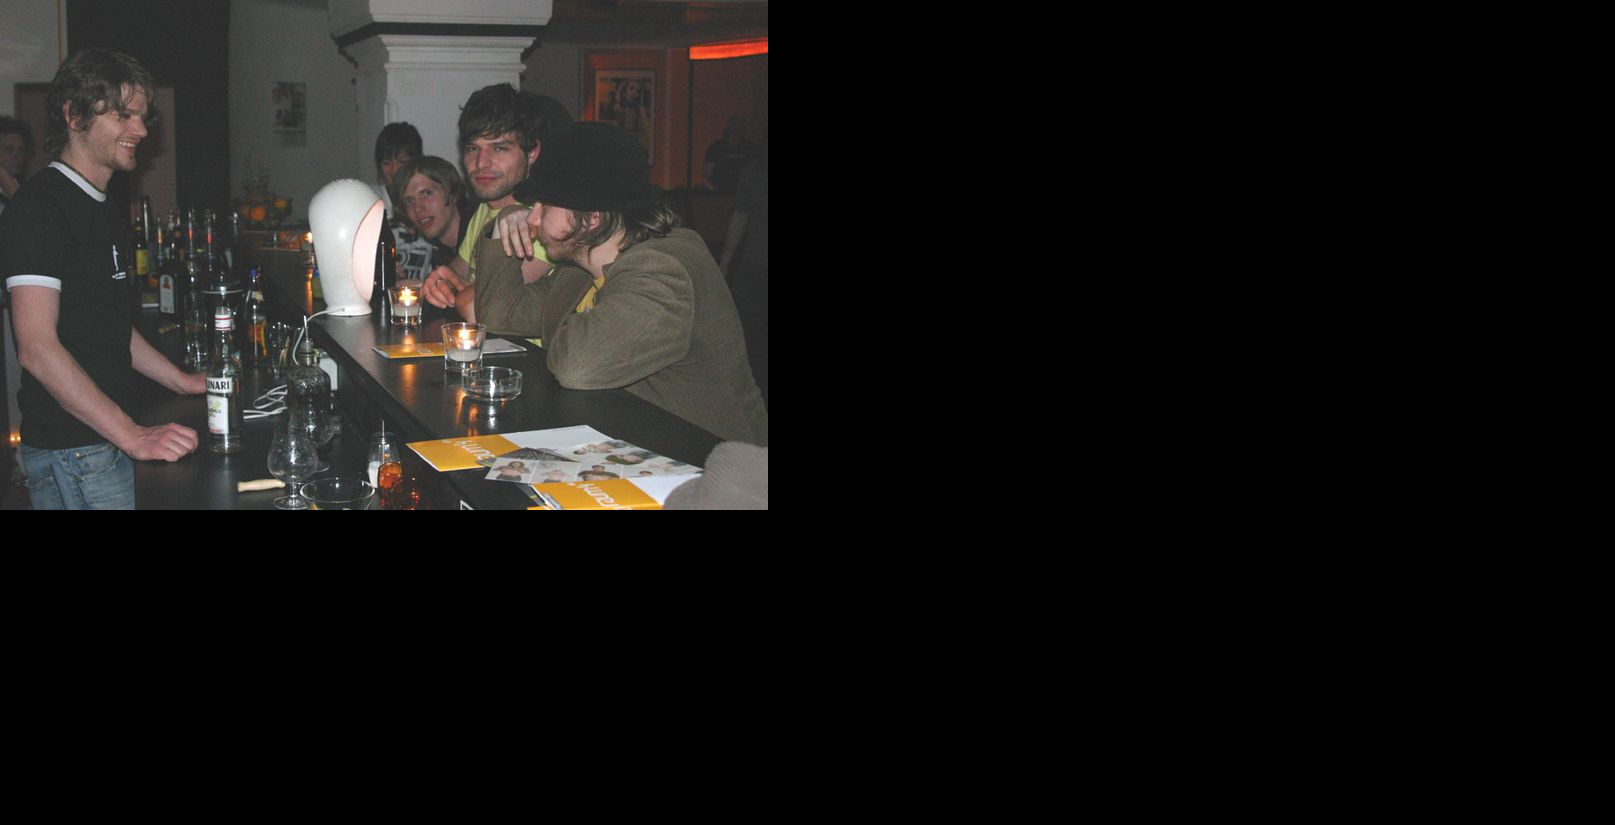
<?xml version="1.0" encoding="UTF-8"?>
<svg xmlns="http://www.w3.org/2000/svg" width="1615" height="825">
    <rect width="100%" height="100%" fill="#000000"/>
    <image x="0" y="0" width="768" height="510" href="img_01.png"/>
</svg>
